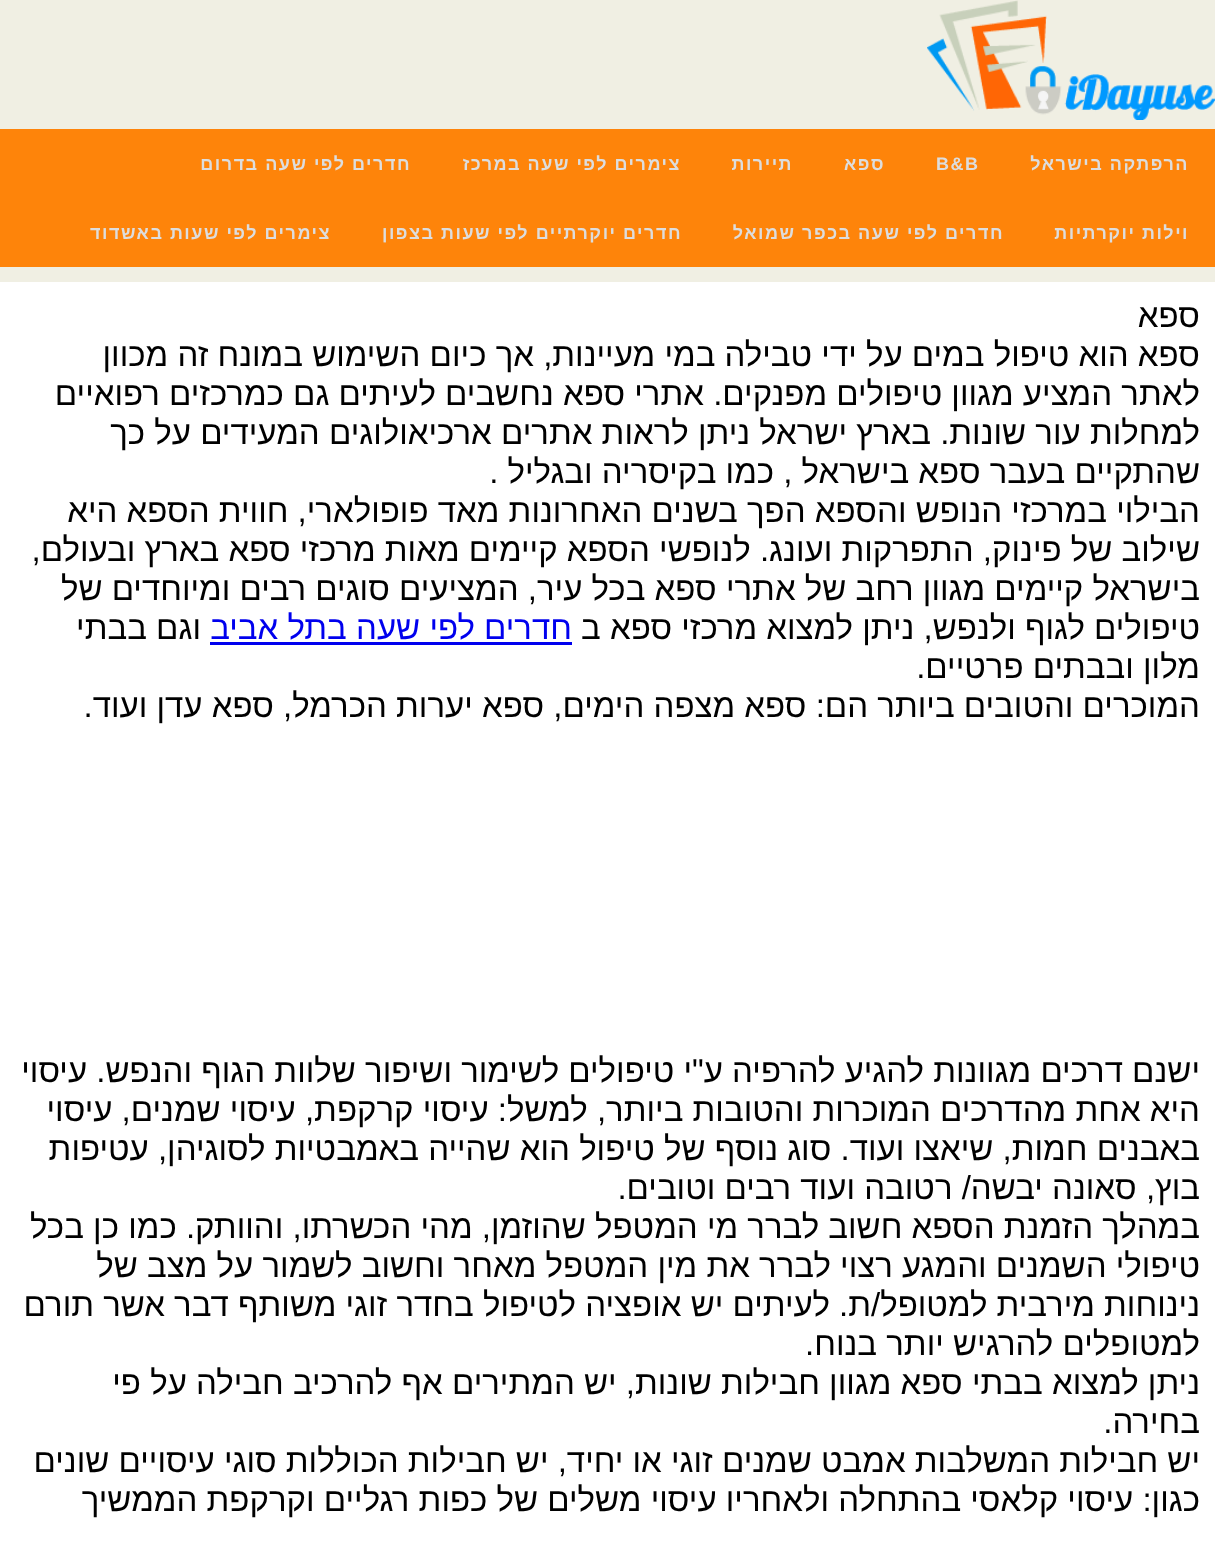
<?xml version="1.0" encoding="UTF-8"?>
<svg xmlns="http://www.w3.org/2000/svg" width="1215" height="1541">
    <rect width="100%" height="100%" fill="#F0EFE3"/>
    <image x="927" y="0" width="288" height="120" href="img_01.png"/>
    <rect x="0" y="129" width="1215" height="138" fill="#FE840A"/>
    <text x="1189" y="170" font-family="Liberation Sans" font-size="18" font-weight="700" letter-spacing="1.5" direction="rtl" fill="#DDDDDD">הרפתקה בישראל</text>
    <text x="936" y="170" font-family="Liberation Sans" font-size="18" font-weight="700" letter-spacing="1.5" fill="#DDDDDD">B&amp;B</text>
    <text x="885" y="170" font-family="Liberation Sans" font-size="18" font-weight="700" letter-spacing="1.5" direction="rtl" fill="#DDDDDD">ספא</text>
    <text x="793" y="170" font-family="Liberation Sans" font-size="18" font-weight="700" letter-spacing="1.5" direction="rtl" fill="#DDDDDD">תיירות</text>
    <text x="681" y="170" font-family="Liberation Sans" font-size="18" font-weight="700" letter-spacing="1.5" direction="rtl" fill="#DDDDDD">צימרים לפי שעה במרכז</text>
    <text x="411" y="170" font-family="Liberation Sans" font-size="18" font-weight="700" letter-spacing="1.5" direction="rtl" fill="#DDDDDD">חדרים לפי שעה בדרום</text>
    <text x="1189" y="239" font-family="Liberation Sans" font-size="18" font-weight="700" letter-spacing="1.5" direction="rtl" fill="#DDDDDD">וילות יוקרתיות</text>
    <text x="1004" y="239" font-family="Liberation Sans" font-size="18" font-weight="700" letter-spacing="1.5" direction="rtl" fill="#DDDDDD">חדרים לפי שעה בכפר שמואל</text>
    <text x="682" y="239" font-family="Liberation Sans" font-size="18" font-weight="700" letter-spacing="1.5" direction="rtl" fill="#DDDDDD">חדרים יוקרתיים לפי שעות בצפון</text>
    <text x="331" y="239" font-family="Liberation Sans" font-size="18" font-weight="700" letter-spacing="1.5" direction="rtl" fill="#DDDDDD">צימרים לפי שעות באשדוד</text>
    <rect x="0" y="282" width="1215" height="1259" fill="#FFFFFF"/>
    <text font-family="Liberation Sans" font-size="33" direction="rtl" fill="#000000">
        <tspan x="1200" y="327">ספא</tspan>
        <tspan x="1200" y="366">ספא הוא טיפול במים על ידי טבילה במי מעיינות, אך כיום השימוש במונח זה מכוון</tspan>
        <tspan x="1200" y="405">לאתר המציע מגוון טיפולים מפנקים. אתרי ספא נחשבים לעיתים גם כמרכזים רפואיים</tspan>
        <tspan x="1200" y="444">למחלות עור שונות. בארץ ישראל ניתן לראות אתרים ארכיאולוגים המעידים על כך</tspan>
        <tspan x="1200" y="483">שהתקיים בעבר ספא בישראל , כמו בקיסריה ובגליל .</tspan>
        <tspan x="1200" y="522">הבילוי במרכזי הנופש והספא הפך בשנים האחרונות מאד פופולארי, חווית הספא היא</tspan>
        <tspan x="1200" y="561">שילוב של פינוק, התפרקות ועונג. לנופשי הספא קיימים מאות מרכזי ספא בארץ ובעולם,</tspan>
        <tspan x="1200" y="600">בישראל קיימים מגוון רחב של אתרי ספא בכל עיר, המציעים סוגים רבים ומיוחדים של</tspan>
        <tspan x="1200" y="639">טיפולים לגוף ולנפש, ניתן למצוא מרכזי ספא ב</tspan>
    </text>
    <text x="572" y="639" font-family="Liberation Sans" font-size="33" direction="rtl" fill="#0000EE">חדרים לפי שעה בתל אביב</text>
    <rect x="210" y="642" width="362" height="3" fill="#0000EE"/>
    <text x="201" y="639" font-family="Liberation Sans" font-size="33" direction="rtl" fill="#000000">וגם בבתי</text>
    <text font-family="Liberation Sans" font-size="33" direction="rtl" fill="#000000">
        <tspan x="1200" y="678">מלון ובבתים פרטיים.</tspan>
        <tspan x="1200" y="717">המוכרים והטובים ביותר הם: ספא מצפה הימים, ספא יערות הכרמל, ספא עדן ועוד.</tspan>
    </text>
    <text font-family="Liberation Sans" font-size="33" direction="rtl" fill="#000000">
        <tspan x="1200" y="1082">ישנם דרכים מגוונות להגיע להרפיה ע"י טיפולים לשימור ושיפור שלוות הגוף והנפש. עיסוי</tspan>
        <tspan x="1200" y="1121">היא אחת מהדרכים המוכרות והטובות ביותר, למשל: עיסוי קרקפת, עיסוי שמנים, עיסוי</tspan>
        <tspan x="1200" y="1160">באבנים חמות, שיאצו ועוד. סוג נוסף של טיפול הוא שהייה באמבטיות לסוגיהן, עטיפות</tspan>
        <tspan x="1200" y="1199">בוץ, סאונה יבשה/ רטובה ועוד רבים וטובים.</tspan>
        <tspan x="1200" y="1238">במהלך הזמנת הספא חשוב לברר מי המטפל שהוזמן, מהי הכשרתו, והוותק. כמו כן בכל</tspan>
        <tspan x="1200" y="1277">טיפולי השמנים והמגע רצוי לברר את מין המטפל מאחר וחשוב לשמור על מצב של</tspan>
        <tspan x="1200" y="1316">נינוחות מירבית למטופל/ת. לעיתים יש אופציה לטיפול בחדר זוגי משותף דבר אשר תורם</tspan>
        <tspan x="1200" y="1355">למטופלים להרגיש יותר בנוח.</tspan>
        <tspan x="1200" y="1394">ניתן למצוא בבתי ספא מגוון חבילות שונות, יש המתירים אף להרכיב חבילה על פי</tspan>
        <tspan x="1200" y="1433">בחירה.</tspan>
        <tspan x="1200" y="1472">יש חבילות המשלבות אמבט שמנים זוגי או יחיד, יש חבילות הכוללות סוגי עיסויים שונים</tspan>
        <tspan x="1200" y="1511">כגון: עיסוי קלאסי בהתחלה ולאחריו עיסוי משלים של כפות רגליים וקרקפת הממשיך</tspan>
    </text>
</svg>
